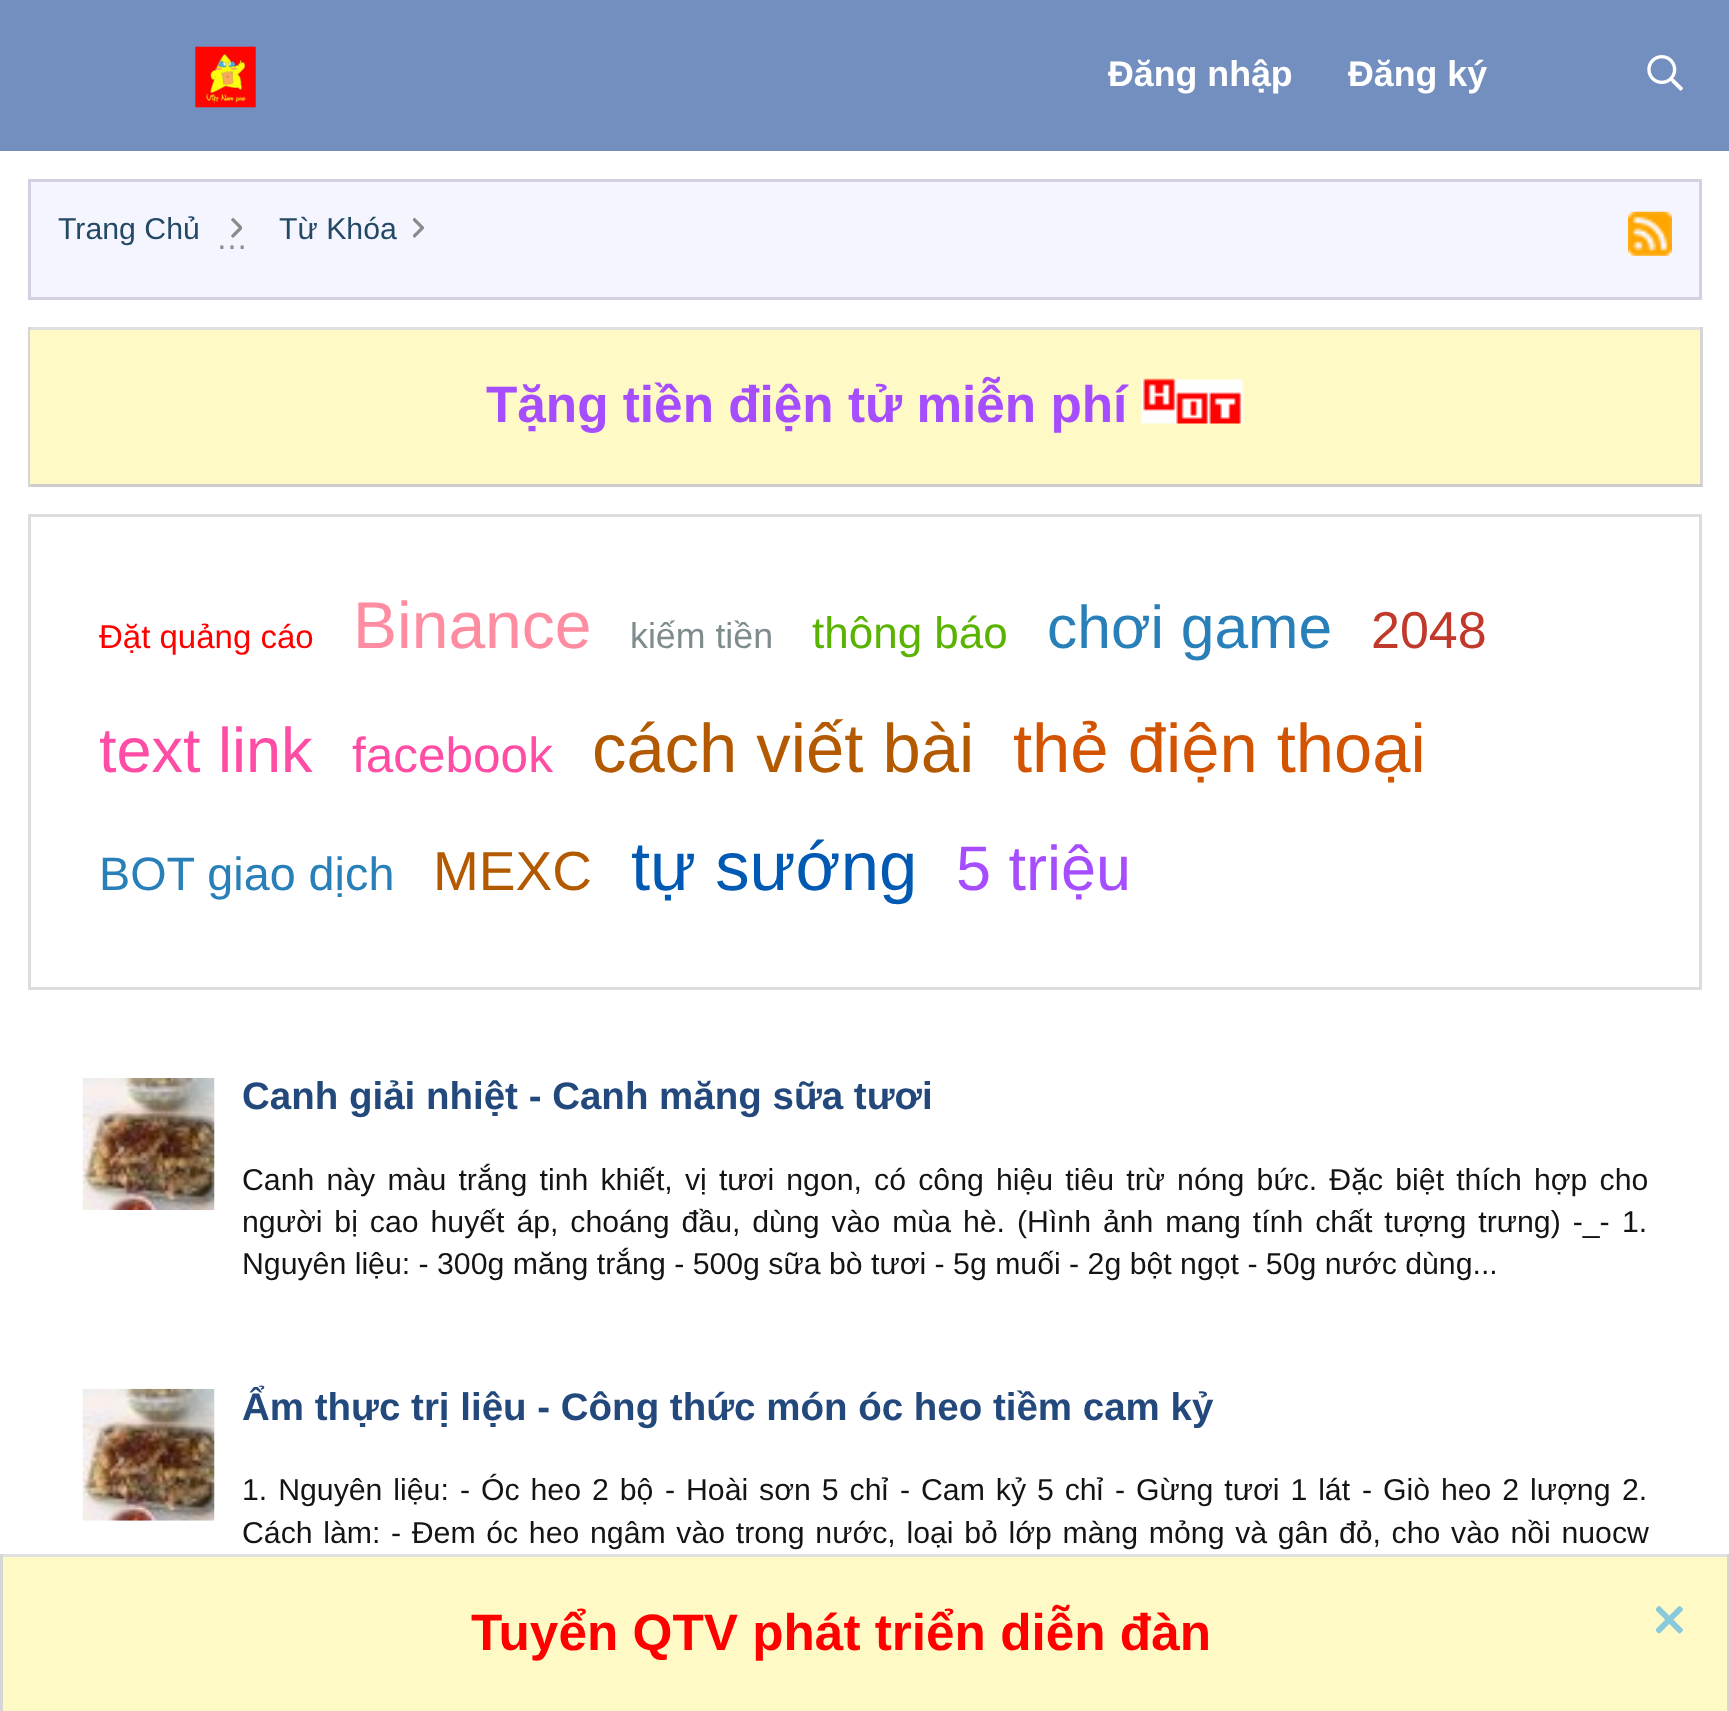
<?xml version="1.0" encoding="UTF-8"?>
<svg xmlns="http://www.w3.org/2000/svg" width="1729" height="1711">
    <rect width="100%" height="100%" fill="#FFFFFF"/>
    <rect x="0" y="0" width="1729" height="151" fill="#738FBF"/>
    <image x="195" y="46" width="61" height="62" href="img_01.png"/>
    <text x="1108" y="86" font-family="Liberation Sans" font-size="35.75" font-weight="700" fill="#FFFFFF">Đăng nhập</text>
    <text x="1348" y="86" font-family="Liberation Sans" font-size="35.75" font-weight="700" fill="#FFFFFF">Đăng ký</text>
    <image x="1647" y="55" width="36" height="36" href="img_02.png"/>
    <rect x="29.5" y="180.5" width="1671" height="118" fill="#F5F5FF" stroke="#D1D1E1" stroke-width="3"/>
    <text x="58" y="239" font-family="Liberation Sans" font-size="30.25" fill="#234965">Trang Chủ</text>
    <image x="231" y="217" width="11" height="21" href="img_03.png"/>
    <text x="216" y="249" font-family="Liberation Sans" font-size="32" fill="#8A8A8A">…</text>
    <text x="279" y="239" font-family="Liberation Sans" font-size="30.25" fill="#234965">Từ Khóa</text>
    <image x="413" y="217" width="11" height="21" href="img_04.png"/>
    <image x="1628" y="211" width="44" height="45" href="img_05.png"/>
    <rect x="28" y="327" width="1674" height="3" fill="#E0E0E0"/>
    <rect x="1700" y="327" width="3" height="160" fill="#D6D6D6"/>
    <rect x="28" y="484" width="1674" height="3" fill="#CCCCCC"/>
    <rect x="28" y="327" width="3" height="160" fill="#D6D6D6"/>
    <rect x="30" y="330" width="1670" height="154" fill="#FFFAC5"/>
    <text x="486" y="422" font-family="Liberation Sans" font-size="51.3" font-weight="700" fill="#A64DFF">Tặng tiền điện tử miễn phí</text>
    <image x="1141" y="378" width="103" height="46" href="img_06.png"/>
    <rect x="29.5" y="515.5" width="1671" height="473" fill="none" stroke="#DDDDDD" stroke-width="3"/>
    <text x="99" y="648" font-family="Liberation Sans" font-size="33" fill="#FF0000">Đặt quảng cáo</text>
    <text x="353" y="648" font-family="Liberation Sans" font-size="66" fill="#FF8DA1">Binance</text>
    <text x="630" y="648" font-family="Liberation Sans" font-size="35.75" fill="#7F8C8D">kiếm tiền</text>
    <text x="812" y="648" font-family="Liberation Sans" font-size="44" fill="#59B300">thông báo</text>
    <text x="1047" y="648" font-family="Liberation Sans" font-size="60.5" fill="#2980B9">chơi game</text>
    <text x="1371" y="648" font-family="Liberation Sans" font-size="52" fill="#C0392B">2048</text>
    <text x="99" y="772" font-family="Liberation Sans" font-size="63" fill="#FF4DA6">text link</text>
    <text x="352" y="772" font-family="Liberation Sans" font-size="49.5" fill="#FF4DA6">facebook</text>
    <text x="592" y="772" font-family="Liberation Sans" font-size="68.75" fill="#B35900">cách viết bài</text>
    <text x="1013" y="772" font-family="Liberation Sans" font-size="68.75" fill="#D35400">thẻ điện thoại</text>
    <text x="99" y="890" font-family="Liberation Sans" font-size="46.75" fill="#2980B9">BOT giao dịch</text>
    <text x="433" y="890" font-family="Liberation Sans" font-size="55" fill="#B35900">MEXC</text>
    <text x="631" y="890" font-family="Liberation Sans" font-size="68.75" fill="#0059B3">tự sướng</text>
    <text x="956" y="890" font-family="Liberation Sans" font-size="63" fill="#A64DFF">5 triệu</text>
    <image x="82" y="1078" width="133" height="132" href="img_07.png"/>
    <text x="242" y="1109" font-family="Liberation Sans" font-size="38.5" font-weight="700" fill="#23497C">Canh giải nhiệt - Canh măng sữa tươi</text>
    <text font-family="Liberation Sans" font-size="30.25" fill="#141414">
        <tspan x="242" y="1190" word-spacing="3.75">Canh này màu trắng tinh khiết, vị tươi ngon, có công hiệu tiêu trừ nóng bức. Đặc biệt thích hợp cho</tspan>
        <tspan x="242" y="1232" word-spacing="3.5">người bị cao huyết áp, choáng đầu, dùng vào mùa hè.</tspan>
    </text>
    <text x="1017" y="1232" word-spacing="3.5" font-family="Liberation Sans" font-size="30.25" fill="#141414">(Hình ảnh mang tính chất tượng trưng) -_-</text>
    <text x="1622" y="1232" font-family="Liberation Sans" font-size="30.25" fill="#141414">1.</text>
    <text x="242" y="1274" font-family="Liberation Sans" font-size="30.25" fill="#141414">Nguyên liệu: - 300g măng trắng - 500g sữa bò tươi - 5g muối - 2g bột ngọt - 50g nước dùng...</text>
    <image x="82" y="1388" width="133" height="133" href="img_08.png"/>
    <text x="242" y="1420" font-family="Liberation Sans" font-size="38.5" font-weight="700" fill="#23497C">Ẩm thực trị liệu - Công thức món óc heo tiềm cam kỷ</text>
    <text x="242" y="1500" word-spacing="2.5" font-family="Liberation Sans" font-size="30.25" fill="#141414">1. Nguyên liệu:</text>
    <text x="460" y="1500" word-spacing="2.5" font-family="Liberation Sans" font-size="30.25" fill="#141414">- Óc heo 2 bộ</text>
    <text x="665" y="1500" word-spacing="2.5" font-family="Liberation Sans" font-size="30.25" fill="#141414">- Hoài sơn 5 chỉ</text>
    <text x="900" y="1500" word-spacing="2.5" font-family="Liberation Sans" font-size="30.25" fill="#141414">- Cam kỷ 5 chỉ</text>
    <text x="1115" y="1500" word-spacing="2.5" font-family="Liberation Sans" font-size="30.25" fill="#141414">- Gừng tươi 1 lát</text>
    <text x="1362" y="1500" word-spacing="2.5" font-family="Liberation Sans" font-size="30.25" fill="#141414">- Giò heo 2 lượng</text>
    <text x="1622" y="1500" font-family="Liberation Sans" font-size="30.25" fill="#141414">2.</text>
    <text x="242" y="1543" word-spacing="2.25" font-family="Liberation Sans" font-size="30.25" fill="#141414">Cách làm:</text>
    <text x="391" y="1543" word-spacing="2.25" font-family="Liberation Sans" font-size="30.25" fill="#141414">- Đem óc heo ngâm vào trong nước, loại bỏ lớp màng mỏng và gân đỏ, cho vào nồi nuocw</text>
    <rect x="3" y="1557" width="1724" height="154" fill="#FFFAC5"/>
    <rect x="0" y="1554" width="1729" height="3" fill="#E0E0E0"/>
    <rect x="1727" y="1554" width="2" height="157" fill="#D6D6D6"/>
    <rect x="0" y="1554" width="3" height="157" fill="#D6D6D6"/>
    <text x="471" y="1650" font-family="Liberation Sans" font-size="51.3" font-weight="700" fill="#FF0000">Tuyển QTV phát triển diễn đàn</text>
    <image x="1656" y="1606" width="27" height="28" href="img_09.png"/>
</svg>
